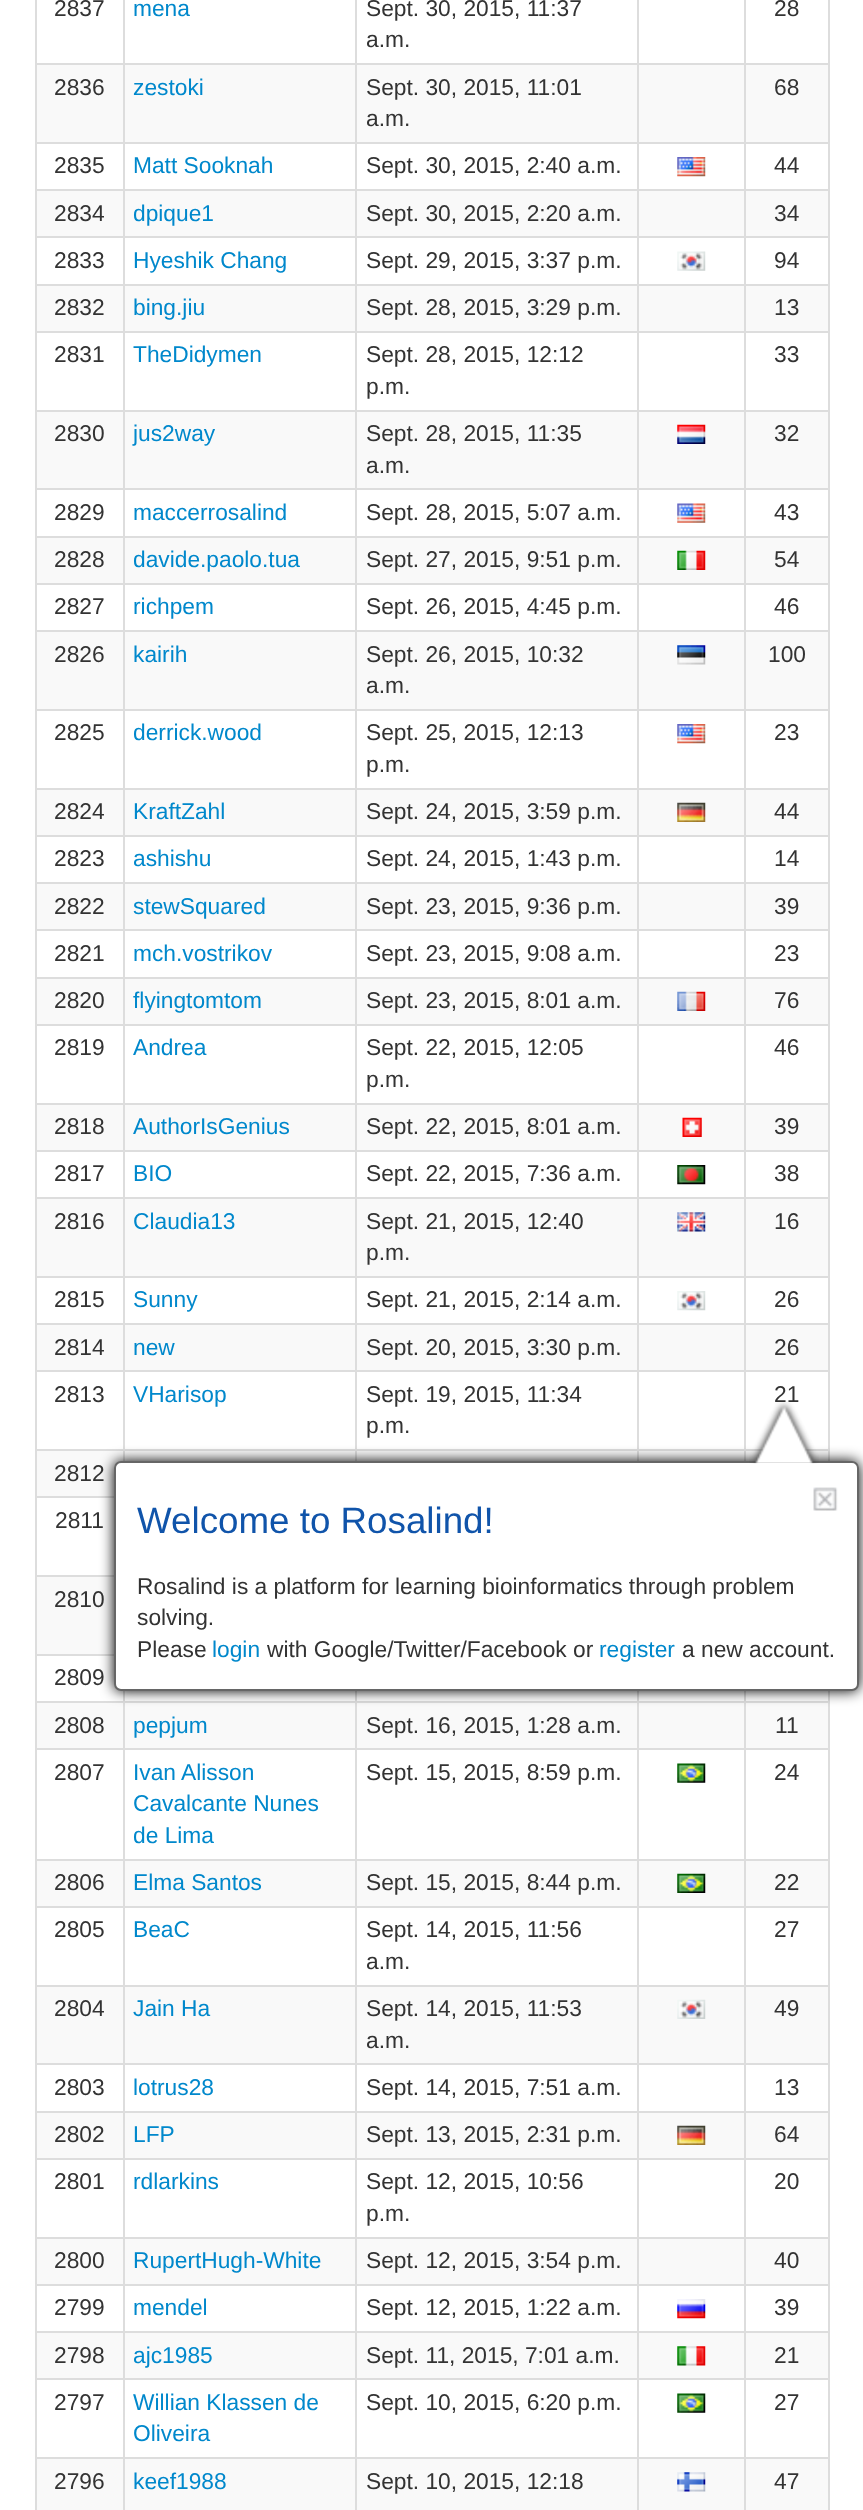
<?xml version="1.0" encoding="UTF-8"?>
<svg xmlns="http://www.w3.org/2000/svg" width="863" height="2510">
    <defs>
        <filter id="blur1" x="-50%" y="-200%" width="200%" height="500%"><feGaussianBlur stdDeviation="7"/></filter>
    </defs>
    <rect width="100%" height="100%" fill="#FFFFFF"/>
    <path d="M 42 -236 H 822 C 826 -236 830 -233 830 -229 V 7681 C 830 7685 826 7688 822 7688 H 42 C 38 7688 35 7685 35 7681 V -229 C 35 -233 38 -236 42 -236 Z M 42 -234 H 822 C 825 -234 828 -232 828 -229 V 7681 C 828 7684 825 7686 822 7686 H 42 C 38 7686 35 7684 35 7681 V -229 C 35 -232 38 -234 42 -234 Z" fill="#DDDDDD" fill-rule="evenodd"/>
    <rect x="35" y="0" width="2" height="63" fill="#DDDDDD"/>
    <text x="54" y="16" font-family="Liberation Sans" font-size="22.75" fill="#333333">2837</text>
    <rect x="123" y="0" width="2" height="63" fill="#DDDDDD"/>
    <text x="133" y="16" font-family="Liberation Sans" font-size="22.75" fill="#0088CC">mena</text>
    <rect x="355" y="0" width="2" height="63" fill="#DDDDDD"/>
    <text font-family="Liberation Sans" font-size="22.75" fill="#333333">
        <tspan x="366" y="16">Sept. 30, 2015, 11:37</tspan>
        <tspan x="366" y="47">a.m.</tspan>
    </text>
    <rect x="637" y="0" width="2" height="63" fill="#DDDDDD"/>
    <rect x="744" y="0" width="2" height="63" fill="#DDDDDD"/>
    <text x="774" y="16" font-family="Liberation Sans" font-size="22.75" fill="#333333">28</text>
    <rect x="37" y="65" width="86" height="77" fill="#F9F9F9"/>
    <rect x="35" y="63" width="793" height="2" fill="#DDDDDD"/>
    <rect x="35" y="63" width="2" height="79" fill="#DDDDDD"/>
    <text x="54" y="95" font-family="Liberation Sans" font-size="22.75" fill="#333333">2836</text>
    <rect x="125" y="65" width="230" height="77" fill="#F9F9F9"/>
    <rect x="123" y="63" width="2" height="79" fill="#DDDDDD"/>
    <text x="133" y="95" font-family="Liberation Sans" font-size="22.75" fill="#0088CC">zestoki</text>
    <rect x="357" y="65" width="280" height="77" fill="#F9F9F9"/>
    <rect x="355" y="63" width="2" height="79" fill="#DDDDDD"/>
    <text font-family="Liberation Sans" font-size="22.75" fill="#333333">
        <tspan x="366" y="95">Sept. 30, 2015, 11:01</tspan>
        <tspan x="366" y="126">a.m.</tspan>
    </text>
    <rect x="639" y="65" width="105" height="77" fill="#F9F9F9"/>
    <rect x="637" y="63" width="2" height="79" fill="#DDDDDD"/>
    <rect x="746" y="65" width="82" height="77" fill="#F9F9F9"/>
    <rect x="744" y="63" width="2" height="79" fill="#DDDDDD"/>
    <text x="774" y="95" font-family="Liberation Sans" font-size="22.75" fill="#333333">68</text>
    <rect x="35" y="142" width="793" height="2" fill="#DDDDDD"/>
    <rect x="35" y="142" width="2" height="47" fill="#DDDDDD"/>
    <text x="54" y="173" font-family="Liberation Sans" font-size="22.75" fill="#333333">2835</text>
    <rect x="123" y="142" width="2" height="47" fill="#DDDDDD"/>
    <text x="133" y="173" font-family="Liberation Sans" font-size="22.75" fill="#0088CC">Matt Sooknah</text>
    <rect x="355" y="142" width="2" height="47" fill="#DDDDDD"/>
    <text x="366" y="173" font-family="Liberation Sans" font-size="22.75" fill="#333333">Sept. 30, 2015, 2:40 a.m.</text>
    <rect x="637" y="142" width="2" height="47" fill="#DDDDDD"/>
    <image x="677" y="157" width="29" height="20" href="img_01.png"/>
    <rect x="744" y="142" width="2" height="47" fill="#DDDDDD"/>
    <text x="774" y="173" font-family="Liberation Sans" font-size="22.75" fill="#333333">44</text>
    <rect x="37" y="191" width="86" height="45" fill="#F9F9F9"/>
    <rect x="35" y="189" width="793" height="2" fill="#DDDDDD"/>
    <rect x="35" y="189" width="2" height="47" fill="#DDDDDD"/>
    <text x="54" y="221" font-family="Liberation Sans" font-size="22.75" fill="#333333">2834</text>
    <rect x="125" y="191" width="230" height="45" fill="#F9F9F9"/>
    <rect x="123" y="189" width="2" height="47" fill="#DDDDDD"/>
    <text x="133" y="221" font-family="Liberation Sans" font-size="22.75" fill="#0088CC">dpique1</text>
    <rect x="357" y="191" width="280" height="45" fill="#F9F9F9"/>
    <rect x="355" y="189" width="2" height="47" fill="#DDDDDD"/>
    <text x="366" y="221" font-family="Liberation Sans" font-size="22.75" fill="#333333">Sept. 30, 2015, 2:20 a.m.</text>
    <rect x="639" y="191" width="105" height="45" fill="#F9F9F9"/>
    <rect x="637" y="189" width="2" height="47" fill="#DDDDDD"/>
    <rect x="746" y="191" width="82" height="45" fill="#F9F9F9"/>
    <rect x="744" y="189" width="2" height="47" fill="#DDDDDD"/>
    <text x="774" y="221" font-family="Liberation Sans" font-size="22.75" fill="#333333">34</text>
    <rect x="35" y="236" width="793" height="2" fill="#DDDDDD"/>
    <rect x="35" y="236" width="2" height="48" fill="#DDDDDD"/>
    <text x="54" y="268" font-family="Liberation Sans" font-size="22.75" fill="#333333">2833</text>
    <rect x="123" y="236" width="2" height="48" fill="#DDDDDD"/>
    <text x="133" y="268" font-family="Liberation Sans" font-size="22.75" fill="#0088CC">Hyeshik Chang</text>
    <rect x="355" y="236" width="2" height="48" fill="#DDDDDD"/>
    <text x="366" y="268" font-family="Liberation Sans" font-size="22.75" fill="#333333">Sept. 29, 2015, 3:37 p.m.</text>
    <rect x="637" y="236" width="2" height="48" fill="#DDDDDD"/>
    <image x="677" y="251" width="29" height="20" href="img_02.png"/>
    <rect x="744" y="236" width="2" height="48" fill="#DDDDDD"/>
    <text x="774" y="268" font-family="Liberation Sans" font-size="22.75" fill="#333333">94</text>
    <rect x="37" y="286" width="86" height="45" fill="#F9F9F9"/>
    <rect x="35" y="284" width="793" height="2" fill="#DDDDDD"/>
    <rect x="35" y="284" width="2" height="47" fill="#DDDDDD"/>
    <text x="54" y="315" font-family="Liberation Sans" font-size="22.75" fill="#333333">2832</text>
    <rect x="125" y="286" width="230" height="45" fill="#F9F9F9"/>
    <rect x="123" y="284" width="2" height="47" fill="#DDDDDD"/>
    <text x="133" y="315" font-family="Liberation Sans" font-size="22.75" fill="#0088CC">bing.jiu</text>
    <rect x="357" y="286" width="280" height="45" fill="#F9F9F9"/>
    <rect x="355" y="284" width="2" height="47" fill="#DDDDDD"/>
    <text x="366" y="315" font-family="Liberation Sans" font-size="22.75" fill="#333333">Sept. 28, 2015, 3:29 p.m.</text>
    <rect x="639" y="286" width="105" height="45" fill="#F9F9F9"/>
    <rect x="637" y="284" width="2" height="47" fill="#DDDDDD"/>
    <rect x="746" y="286" width="82" height="45" fill="#F9F9F9"/>
    <rect x="744" y="284" width="2" height="47" fill="#DDDDDD"/>
    <text x="774" y="315" font-family="Liberation Sans" font-size="22.75" fill="#333333">13</text>
    <rect x="35" y="331" width="793" height="2" fill="#DDDDDD"/>
    <rect x="35" y="331" width="2" height="79" fill="#DDDDDD"/>
    <text x="54" y="362" font-family="Liberation Sans" font-size="22.75" fill="#333333">2831</text>
    <rect x="123" y="331" width="2" height="79" fill="#DDDDDD"/>
    <text x="133" y="362" font-family="Liberation Sans" font-size="22.75" fill="#0088CC">TheDidymen</text>
    <rect x="355" y="331" width="2" height="79" fill="#DDDDDD"/>
    <text font-family="Liberation Sans" font-size="22.75" fill="#333333">
        <tspan x="366" y="362">Sept. 28, 2015, 12:12</tspan>
        <tspan x="366" y="394">p.m.</tspan>
    </text>
    <rect x="637" y="331" width="2" height="79" fill="#DDDDDD"/>
    <rect x="744" y="331" width="2" height="79" fill="#DDDDDD"/>
    <text x="774" y="362" font-family="Liberation Sans" font-size="22.75" fill="#333333">33</text>
    <rect x="37" y="412" width="86" height="76" fill="#F9F9F9"/>
    <rect x="35" y="410" width="793" height="2" fill="#DDDDDD"/>
    <rect x="35" y="410" width="2" height="78" fill="#DDDDDD"/>
    <text x="54" y="441" font-family="Liberation Sans" font-size="22.75" fill="#333333">2830</text>
    <rect x="125" y="412" width="230" height="76" fill="#F9F9F9"/>
    <rect x="123" y="410" width="2" height="78" fill="#DDDDDD"/>
    <text x="133" y="441" font-family="Liberation Sans" font-size="22.75" fill="#0088CC">jus2way</text>
    <rect x="357" y="412" width="280" height="76" fill="#F9F9F9"/>
    <rect x="355" y="410" width="2" height="78" fill="#DDDDDD"/>
    <text font-family="Liberation Sans" font-size="22.75" fill="#333333">
        <tspan x="366" y="441">Sept. 28, 2015, 11:35</tspan>
        <tspan x="366" y="473">a.m.</tspan>
    </text>
    <rect x="639" y="412" width="105" height="76" fill="#F9F9F9"/>
    <rect x="637" y="410" width="2" height="78" fill="#DDDDDD"/>
    <image x="677" y="424" width="29" height="20" href="img_03.png"/>
    <rect x="746" y="412" width="82" height="76" fill="#F9F9F9"/>
    <rect x="744" y="410" width="2" height="78" fill="#DDDDDD"/>
    <text x="774" y="441" font-family="Liberation Sans" font-size="22.75" fill="#333333">32</text>
    <rect x="35" y="488" width="793" height="2" fill="#DDDDDD"/>
    <rect x="35" y="488" width="2" height="48" fill="#DDDDDD"/>
    <text x="54" y="520" font-family="Liberation Sans" font-size="22.75" fill="#333333">2829</text>
    <rect x="123" y="488" width="2" height="48" fill="#DDDDDD"/>
    <text x="133" y="520" font-family="Liberation Sans" font-size="22.75" fill="#0088CC">maccerrosalind</text>
    <rect x="355" y="488" width="2" height="48" fill="#DDDDDD"/>
    <text x="366" y="520" font-family="Liberation Sans" font-size="22.75" fill="#333333">Sept. 28, 2015, 5:07 a.m.</text>
    <rect x="637" y="488" width="2" height="48" fill="#DDDDDD"/>
    <image x="677" y="503" width="29" height="20" href="img_04.png"/>
    <rect x="744" y="488" width="2" height="48" fill="#DDDDDD"/>
    <text x="774" y="520" font-family="Liberation Sans" font-size="22.75" fill="#333333">43</text>
    <rect x="37" y="538" width="86" height="45" fill="#F9F9F9"/>
    <rect x="35" y="536" width="793" height="2" fill="#DDDDDD"/>
    <rect x="35" y="536" width="2" height="47" fill="#DDDDDD"/>
    <text x="54" y="567" font-family="Liberation Sans" font-size="22.75" fill="#333333">2828</text>
    <rect x="125" y="538" width="230" height="45" fill="#F9F9F9"/>
    <rect x="123" y="536" width="2" height="47" fill="#DDDDDD"/>
    <text x="133" y="567" font-family="Liberation Sans" font-size="22.75" fill="#0088CC">davide.paolo.tua</text>
    <rect x="357" y="538" width="280" height="45" fill="#F9F9F9"/>
    <rect x="355" y="536" width="2" height="47" fill="#DDDDDD"/>
    <text x="366" y="567" font-family="Liberation Sans" font-size="22.75" fill="#333333">Sept. 27, 2015, 9:51 p.m.</text>
    <rect x="639" y="538" width="105" height="45" fill="#F9F9F9"/>
    <rect x="637" y="536" width="2" height="47" fill="#DDDDDD"/>
    <image x="677" y="550" width="29" height="20" href="img_05.png"/>
    <rect x="746" y="538" width="82" height="45" fill="#F9F9F9"/>
    <rect x="744" y="536" width="2" height="47" fill="#DDDDDD"/>
    <text x="774" y="567" font-family="Liberation Sans" font-size="22.75" fill="#333333">54</text>
    <rect x="35" y="583" width="793" height="2" fill="#DDDDDD"/>
    <rect x="35" y="583" width="2" height="47" fill="#DDDDDD"/>
    <text x="54" y="614" font-family="Liberation Sans" font-size="22.75" fill="#333333">2827</text>
    <rect x="123" y="583" width="2" height="47" fill="#DDDDDD"/>
    <text x="133" y="614" font-family="Liberation Sans" font-size="22.75" fill="#0088CC">richpem</text>
    <rect x="355" y="583" width="2" height="47" fill="#DDDDDD"/>
    <text x="366" y="614" font-family="Liberation Sans" font-size="22.75" fill="#333333">Sept. 26, 2015, 4:45 p.m.</text>
    <rect x="637" y="583" width="2" height="47" fill="#DDDDDD"/>
    <rect x="744" y="583" width="2" height="47" fill="#DDDDDD"/>
    <text x="774" y="614" font-family="Liberation Sans" font-size="22.75" fill="#333333">46</text>
    <rect x="37" y="632" width="86" height="77" fill="#F9F9F9"/>
    <rect x="35" y="630" width="793" height="2" fill="#DDDDDD"/>
    <rect x="35" y="630" width="2" height="79" fill="#DDDDDD"/>
    <text x="54" y="662" font-family="Liberation Sans" font-size="22.75" fill="#333333">2826</text>
    <rect x="125" y="632" width="230" height="77" fill="#F9F9F9"/>
    <rect x="123" y="630" width="2" height="79" fill="#DDDDDD"/>
    <text x="133" y="662" font-family="Liberation Sans" font-size="22.75" fill="#0088CC">kairih</text>
    <rect x="357" y="632" width="280" height="77" fill="#F9F9F9"/>
    <rect x="355" y="630" width="2" height="79" fill="#DDDDDD"/>
    <text font-family="Liberation Sans" font-size="22.75" fill="#333333">
        <tspan x="366" y="662">Sept. 26, 2015, 10:32</tspan>
        <tspan x="366" y="693">a.m.</tspan>
    </text>
    <rect x="639" y="632" width="105" height="77" fill="#F9F9F9"/>
    <rect x="637" y="630" width="2" height="79" fill="#DDDDDD"/>
    <image x="677" y="645" width="29" height="20" href="img_06.png"/>
    <rect x="746" y="632" width="82" height="77" fill="#F9F9F9"/>
    <rect x="744" y="630" width="2" height="79" fill="#DDDDDD"/>
    <text x="768" y="662" font-family="Liberation Sans" font-size="22.75" fill="#333333">100</text>
    <rect x="35" y="709" width="793" height="2" fill="#DDDDDD"/>
    <rect x="35" y="709" width="2" height="79" fill="#DDDDDD"/>
    <text x="54" y="740" font-family="Liberation Sans" font-size="22.75" fill="#333333">2825</text>
    <rect x="123" y="709" width="2" height="79" fill="#DDDDDD"/>
    <text x="133" y="740" font-family="Liberation Sans" font-size="22.75" fill="#0088CC">derrick.wood</text>
    <rect x="355" y="709" width="2" height="79" fill="#DDDDDD"/>
    <text font-family="Liberation Sans" font-size="22.75" fill="#333333">
        <tspan x="366" y="740">Sept. 25, 2015, 12:13</tspan>
        <tspan x="366" y="772">p.m.</tspan>
    </text>
    <rect x="637" y="709" width="2" height="79" fill="#DDDDDD"/>
    <image x="677" y="724" width="29" height="20" href="img_01.png"/>
    <rect x="744" y="709" width="2" height="79" fill="#DDDDDD"/>
    <text x="774" y="740" font-family="Liberation Sans" font-size="22.75" fill="#333333">23</text>
    <rect x="37" y="790" width="86" height="45" fill="#F9F9F9"/>
    <rect x="35" y="788" width="793" height="2" fill="#DDDDDD"/>
    <rect x="35" y="788" width="2" height="47" fill="#DDDDDD"/>
    <text x="54" y="819" font-family="Liberation Sans" font-size="22.75" fill="#333333">2824</text>
    <rect x="125" y="790" width="230" height="45" fill="#F9F9F9"/>
    <rect x="123" y="788" width="2" height="47" fill="#DDDDDD"/>
    <text x="133" y="819" font-family="Liberation Sans" font-size="22.75" fill="#0088CC">KraftZahl</text>
    <rect x="357" y="790" width="280" height="45" fill="#F9F9F9"/>
    <rect x="355" y="788" width="2" height="47" fill="#DDDDDD"/>
    <text x="366" y="819" font-family="Liberation Sans" font-size="22.75" fill="#333333">Sept. 24, 2015, 3:59 p.m.</text>
    <rect x="639" y="790" width="105" height="45" fill="#F9F9F9"/>
    <rect x="637" y="788" width="2" height="47" fill="#DDDDDD"/>
    <image x="677" y="802" width="29" height="20" href="img_07.png"/>
    <rect x="746" y="790" width="82" height="45" fill="#F9F9F9"/>
    <rect x="744" y="788" width="2" height="47" fill="#DDDDDD"/>
    <text x="774" y="819" font-family="Liberation Sans" font-size="22.75" fill="#333333">44</text>
    <rect x="35" y="835" width="793" height="2" fill="#DDDDDD"/>
    <rect x="35" y="835" width="2" height="47" fill="#DDDDDD"/>
    <text x="54" y="866" font-family="Liberation Sans" font-size="22.75" fill="#333333">2823</text>
    <rect x="123" y="835" width="2" height="47" fill="#DDDDDD"/>
    <text x="133" y="866" font-family="Liberation Sans" font-size="22.75" fill="#0088CC">ashishu</text>
    <rect x="355" y="835" width="2" height="47" fill="#DDDDDD"/>
    <text x="366" y="866" font-family="Liberation Sans" font-size="22.75" fill="#333333">Sept. 24, 2015, 1:43 p.m.</text>
    <rect x="637" y="835" width="2" height="47" fill="#DDDDDD"/>
    <rect x="744" y="835" width="2" height="47" fill="#DDDDDD"/>
    <text x="774" y="866" font-family="Liberation Sans" font-size="22.75" fill="#333333">14</text>
    <rect x="37" y="884" width="86" height="45" fill="#F9F9F9"/>
    <rect x="35" y="882" width="793" height="2" fill="#DDDDDD"/>
    <rect x="35" y="882" width="2" height="47" fill="#DDDDDD"/>
    <text x="54" y="914" font-family="Liberation Sans" font-size="22.75" fill="#333333">2822</text>
    <rect x="125" y="884" width="230" height="45" fill="#F9F9F9"/>
    <rect x="123" y="882" width="2" height="47" fill="#DDDDDD"/>
    <text x="133" y="914" font-family="Liberation Sans" font-size="22.75" fill="#0088CC">stewSquared</text>
    <rect x="357" y="884" width="280" height="45" fill="#F9F9F9"/>
    <rect x="355" y="882" width="2" height="47" fill="#DDDDDD"/>
    <text x="366" y="914" font-family="Liberation Sans" font-size="22.75" fill="#333333">Sept. 23, 2015, 9:36 p.m.</text>
    <rect x="639" y="884" width="105" height="45" fill="#F9F9F9"/>
    <rect x="637" y="882" width="2" height="47" fill="#DDDDDD"/>
    <rect x="746" y="884" width="82" height="45" fill="#F9F9F9"/>
    <rect x="744" y="882" width="2" height="47" fill="#DDDDDD"/>
    <text x="774" y="914" font-family="Liberation Sans" font-size="22.75" fill="#333333">39</text>
    <rect x="35" y="929" width="793" height="2" fill="#DDDDDD"/>
    <rect x="35" y="929" width="2" height="48" fill="#DDDDDD"/>
    <text x="54" y="961" font-family="Liberation Sans" font-size="22.75" fill="#333333">2821</text>
    <rect x="123" y="929" width="2" height="48" fill="#DDDDDD"/>
    <text x="133" y="961" font-family="Liberation Sans" font-size="22.75" fill="#0088CC">mch.vostrikov</text>
    <rect x="355" y="929" width="2" height="48" fill="#DDDDDD"/>
    <text x="366" y="961" font-family="Liberation Sans" font-size="22.75" fill="#333333">Sept. 23, 2015, 9:08 a.m.</text>
    <rect x="637" y="929" width="2" height="48" fill="#DDDDDD"/>
    <rect x="744" y="929" width="2" height="48" fill="#DDDDDD"/>
    <text x="774" y="961" font-family="Liberation Sans" font-size="22.75" fill="#333333">23</text>
    <rect x="37" y="979" width="86" height="45" fill="#F9F9F9"/>
    <rect x="35" y="977" width="793" height="2" fill="#DDDDDD"/>
    <rect x="35" y="977" width="2" height="47" fill="#DDDDDD"/>
    <text x="54" y="1008" font-family="Liberation Sans" font-size="22.75" fill="#333333">2820</text>
    <rect x="125" y="979" width="230" height="45" fill="#F9F9F9"/>
    <rect x="123" y="977" width="2" height="47" fill="#DDDDDD"/>
    <text x="133" y="1008" font-family="Liberation Sans" font-size="22.75" fill="#0088CC">flyingtomtom</text>
    <rect x="357" y="979" width="280" height="45" fill="#F9F9F9"/>
    <rect x="355" y="977" width="2" height="47" fill="#DDDDDD"/>
    <text x="366" y="1008" font-family="Liberation Sans" font-size="22.75" fill="#333333">Sept. 23, 2015, 8:01 a.m.</text>
    <rect x="639" y="979" width="105" height="45" fill="#F9F9F9"/>
    <rect x="637" y="977" width="2" height="47" fill="#DDDDDD"/>
    <image x="677" y="991" width="29" height="20" href="img_08.png"/>
    <rect x="746" y="979" width="82" height="45" fill="#F9F9F9"/>
    <rect x="744" y="977" width="2" height="47" fill="#DDDDDD"/>
    <text x="774" y="1008" font-family="Liberation Sans" font-size="22.75" fill="#333333">76</text>
    <rect x="35" y="1024" width="793" height="2" fill="#DDDDDD"/>
    <rect x="35" y="1024" width="2" height="79" fill="#DDDDDD"/>
    <text x="54" y="1055" font-family="Liberation Sans" font-size="22.75" fill="#333333">2819</text>
    <rect x="123" y="1024" width="2" height="79" fill="#DDDDDD"/>
    <text x="133" y="1055" font-family="Liberation Sans" font-size="22.75" fill="#0088CC">Andrea</text>
    <rect x="355" y="1024" width="2" height="79" fill="#DDDDDD"/>
    <text font-family="Liberation Sans" font-size="22.75" fill="#333333">
        <tspan x="366" y="1055">Sept. 22, 2015, 12:05</tspan>
        <tspan x="366" y="1087">p.m.</tspan>
    </text>
    <rect x="637" y="1024" width="2" height="79" fill="#DDDDDD"/>
    <rect x="744" y="1024" width="2" height="79" fill="#DDDDDD"/>
    <text x="774" y="1055" font-family="Liberation Sans" font-size="22.75" fill="#333333">46</text>
    <rect x="37" y="1105" width="86" height="45" fill="#F9F9F9"/>
    <rect x="35" y="1103" width="793" height="2" fill="#DDDDDD"/>
    <rect x="35" y="1103" width="2" height="47" fill="#DDDDDD"/>
    <text x="54" y="1134" font-family="Liberation Sans" font-size="22.75" fill="#333333">2818</text>
    <rect x="125" y="1105" width="230" height="45" fill="#F9F9F9"/>
    <rect x="123" y="1103" width="2" height="47" fill="#DDDDDD"/>
    <text x="133" y="1134" font-family="Liberation Sans" font-size="22.75" fill="#0088CC">AuthorIsGenius</text>
    <rect x="357" y="1105" width="280" height="45" fill="#F9F9F9"/>
    <rect x="355" y="1103" width="2" height="47" fill="#DDDDDD"/>
    <text x="366" y="1134" font-family="Liberation Sans" font-size="22.75" fill="#333333">Sept. 22, 2015, 8:01 a.m.</text>
    <rect x="639" y="1105" width="105" height="45" fill="#F9F9F9"/>
    <rect x="637" y="1103" width="2" height="47" fill="#DDDDDD"/>
    <image x="682" y="1117" width="20" height="20" href="img_09.png"/>
    <rect x="746" y="1105" width="82" height="45" fill="#F9F9F9"/>
    <rect x="744" y="1103" width="2" height="47" fill="#DDDDDD"/>
    <text x="774" y="1134" font-family="Liberation Sans" font-size="22.75" fill="#333333">39</text>
    <rect x="35" y="1150" width="793" height="2" fill="#DDDDDD"/>
    <rect x="35" y="1150" width="2" height="47" fill="#DDDDDD"/>
    <text x="54" y="1181" font-family="Liberation Sans" font-size="22.75" fill="#333333">2817</text>
    <rect x="123" y="1150" width="2" height="47" fill="#DDDDDD"/>
    <text x="133" y="1181" font-family="Liberation Sans" font-size="22.75" fill="#0088CC">BIO</text>
    <rect x="355" y="1150" width="2" height="47" fill="#DDDDDD"/>
    <text x="366" y="1181" font-family="Liberation Sans" font-size="22.75" fill="#333333">Sept. 22, 2015, 7:36 a.m.</text>
    <rect x="637" y="1150" width="2" height="47" fill="#DDDDDD"/>
    <image x="677" y="1165" width="29" height="20" href="img_10.png"/>
    <rect x="744" y="1150" width="2" height="47" fill="#DDDDDD"/>
    <text x="774" y="1181" font-family="Liberation Sans" font-size="22.75" fill="#333333">38</text>
    <rect x="37" y="1199" width="86" height="77" fill="#F9F9F9"/>
    <rect x="35" y="1197" width="793" height="2" fill="#DDDDDD"/>
    <rect x="35" y="1197" width="2" height="79" fill="#DDDDDD"/>
    <text x="54" y="1229" font-family="Liberation Sans" font-size="22.75" fill="#333333">2816</text>
    <rect x="125" y="1199" width="230" height="77" fill="#F9F9F9"/>
    <rect x="123" y="1197" width="2" height="79" fill="#DDDDDD"/>
    <text x="133" y="1229" font-family="Liberation Sans" font-size="22.75" fill="#0088CC">Claudia13</text>
    <rect x="357" y="1199" width="280" height="77" fill="#F9F9F9"/>
    <rect x="355" y="1197" width="2" height="79" fill="#DDDDDD"/>
    <text font-family="Liberation Sans" font-size="22.75" fill="#333333">
        <tspan x="366" y="1229">Sept. 21, 2015, 12:40</tspan>
        <tspan x="366" y="1260">p.m.</tspan>
    </text>
    <rect x="639" y="1199" width="105" height="77" fill="#F9F9F9"/>
    <rect x="637" y="1197" width="2" height="79" fill="#DDDDDD"/>
    <image x="677" y="1212" width="29" height="20" href="img_11.png"/>
    <rect x="746" y="1199" width="82" height="77" fill="#F9F9F9"/>
    <rect x="744" y="1197" width="2" height="79" fill="#DDDDDD"/>
    <text x="774" y="1229" font-family="Liberation Sans" font-size="22.75" fill="#333333">16</text>
    <rect x="35" y="1276" width="793" height="2" fill="#DDDDDD"/>
    <rect x="35" y="1276" width="2" height="47" fill="#DDDDDD"/>
    <text x="54" y="1307" font-family="Liberation Sans" font-size="22.75" fill="#333333">2815</text>
    <rect x="123" y="1276" width="2" height="47" fill="#DDDDDD"/>
    <text x="133" y="1307" font-family="Liberation Sans" font-size="22.75" fill="#0088CC">Sunny</text>
    <rect x="355" y="1276" width="2" height="47" fill="#DDDDDD"/>
    <text x="366" y="1307" font-family="Liberation Sans" font-size="22.75" fill="#333333">Sept. 21, 2015, 2:14 a.m.</text>
    <rect x="637" y="1276" width="2" height="47" fill="#DDDDDD"/>
    <image x="677" y="1291" width="29" height="20" href="img_12.png"/>
    <rect x="744" y="1276" width="2" height="47" fill="#DDDDDD"/>
    <text x="774" y="1307" font-family="Liberation Sans" font-size="22.75" fill="#333333">26</text>
    <rect x="37" y="1325" width="86" height="45" fill="#F9F9F9"/>
    <rect x="35" y="1323" width="793" height="2" fill="#DDDDDD"/>
    <rect x="35" y="1323" width="2" height="47" fill="#DDDDDD"/>
    <text x="54" y="1355" font-family="Liberation Sans" font-size="22.75" fill="#333333">2814</text>
    <rect x="125" y="1325" width="230" height="45" fill="#F9F9F9"/>
    <rect x="123" y="1323" width="2" height="47" fill="#DDDDDD"/>
    <text x="133" y="1355" font-family="Liberation Sans" font-size="22.75" fill="#0088CC">new</text>
    <rect x="357" y="1325" width="280" height="45" fill="#F9F9F9"/>
    <rect x="355" y="1323" width="2" height="47" fill="#DDDDDD"/>
    <text x="366" y="1355" font-family="Liberation Sans" font-size="22.75" fill="#333333">Sept. 20, 2015, 3:30 p.m.</text>
    <rect x="639" y="1325" width="105" height="45" fill="#F9F9F9"/>
    <rect x="637" y="1323" width="2" height="47" fill="#DDDDDD"/>
    <rect x="746" y="1325" width="82" height="45" fill="#F9F9F9"/>
    <rect x="744" y="1323" width="2" height="47" fill="#DDDDDD"/>
    <text x="774" y="1355" font-family="Liberation Sans" font-size="22.75" fill="#333333">26</text>
    <rect x="35" y="1370" width="793" height="2" fill="#DDDDDD"/>
    <rect x="35" y="1370" width="2" height="79" fill="#DDDDDD"/>
    <text x="54" y="1402" font-family="Liberation Sans" font-size="22.75" fill="#333333">2813</text>
    <rect x="123" y="1370" width="2" height="79" fill="#DDDDDD"/>
    <text x="133" y="1402" font-family="Liberation Sans" font-size="22.75" fill="#0088CC">VHarisop</text>
    <rect x="355" y="1370" width="2" height="79" fill="#DDDDDD"/>
    <text font-family="Liberation Sans" font-size="22.75" fill="#333333">
        <tspan x="366" y="1402">Sept. 19, 2015, 11:34</tspan>
        <tspan x="366" y="1433">p.m.</tspan>
    </text>
    <rect x="637" y="1370" width="2" height="79" fill="#DDDDDD"/>
    <rect x="744" y="1370" width="2" height="79" fill="#DDDDDD"/>
    <text x="774" y="1402" font-family="Liberation Sans" font-size="22.75" fill="#333333">21</text>
    <rect x="125" y="1451" width="230" height="10" fill="#F9F9F9"/>
    <rect x="35" y="1449" width="793" height="2" fill="#DDDDDD"/>
    <rect x="123" y="1449" width="2" height="12" fill="#DDDDDD"/>
    <rect x="357" y="1451" width="280" height="10" fill="#F9F9F9"/>
    <rect x="355" y="1449" width="2" height="12" fill="#DDDDDD"/>
    <rect x="639" y="1451" width="105" height="10" fill="#F9F9F9"/>
    <rect x="637" y="1449" width="2" height="12" fill="#DDDDDD"/>
    <rect x="746" y="1451" width="82" height="10" fill="#F9F9F9"/>
    <rect x="744" y="1449" width="2" height="12" fill="#DDDDDD"/>
    <rect x="37" y="1451" width="86" height="45" fill="#F9F9F9"/>
    <rect x="35" y="1449" width="2" height="47" fill="#DDDDDD"/>
    <text x="54" y="1481" font-family="Liberation Sans" font-size="22.75" fill="#333333">2812</text>
    <rect x="35" y="1496" width="79" height="2" fill="#DDDDDD"/>
    <rect x="35" y="1496" width="2" height="79" fill="#DDDDDD"/>
    <text x="55" y="1528" font-family="Liberation Sans" font-size="22.75" fill="#333333">2811</text>
    <rect x="37" y="1577" width="77" height="77" fill="#F9F9F9"/>
    <rect x="35" y="1575" width="79" height="2" fill="#DDDDDD"/>
    <rect x="35" y="1575" width="2" height="79" fill="#DDDDDD"/>
    <text x="54" y="1607" font-family="Liberation Sans" font-size="22.75" fill="#333333">2810</text>
    <rect x="35" y="1654" width="79" height="2" fill="#DDDDDD"/>
    <rect x="35" y="1654" width="2" height="47" fill="#DDDDDD"/>
    <text x="54" y="1685" font-family="Liberation Sans" font-size="22.75" fill="#333333">2809</text>
    <rect x="123" y="1691" width="2" height="10" fill="#DDDDDD"/>
    <rect x="355" y="1691" width="2" height="10" fill="#DDDDDD"/>
    <rect x="637" y="1691" width="2" height="10" fill="#DDDDDD"/>
    <rect x="744" y="1691" width="2" height="10" fill="#DDDDDD"/>
    <rect x="37" y="1703" width="86" height="45" fill="#F9F9F9"/>
    <rect x="35" y="1701" width="793" height="2" fill="#DDDDDD"/>
    <rect x="35" y="1701" width="2" height="47" fill="#DDDDDD"/>
    <text x="54" y="1733" font-family="Liberation Sans" font-size="22.75" fill="#333333">2808</text>
    <rect x="125" y="1703" width="230" height="45" fill="#F9F9F9"/>
    <rect x="123" y="1701" width="2" height="47" fill="#DDDDDD"/>
    <text x="133" y="1733" font-family="Liberation Sans" font-size="22.75" fill="#0088CC">pepjum</text>
    <rect x="357" y="1703" width="280" height="45" fill="#F9F9F9"/>
    <rect x="355" y="1701" width="2" height="47" fill="#DDDDDD"/>
    <text x="366" y="1733" font-family="Liberation Sans" font-size="22.75" fill="#333333">Sept. 16, 2015, 1:28 a.m.</text>
    <rect x="639" y="1703" width="105" height="45" fill="#F9F9F9"/>
    <rect x="637" y="1701" width="2" height="47" fill="#DDDDDD"/>
    <rect x="746" y="1703" width="82" height="45" fill="#F9F9F9"/>
    <rect x="744" y="1701" width="2" height="47" fill="#DDDDDD"/>
    <text x="775" y="1733" font-family="Liberation Sans" font-size="22.75" fill="#333333">11</text>
    <rect x="35" y="1748" width="793" height="2" fill="#DDDDDD"/>
    <rect x="35" y="1748" width="2" height="111" fill="#DDDDDD"/>
    <text x="54" y="1780" font-family="Liberation Sans" font-size="22.75" fill="#333333">2807</text>
    <rect x="123" y="1748" width="2" height="111" fill="#DDDDDD"/>
    <text font-family="Liberation Sans" font-size="22.75" fill="#0088CC">
        <tspan x="133" y="1780">Ivan Alisson</tspan>
        <tspan x="133" y="1811">Cavalcante Nunes</tspan>
        <tspan x="133" y="1843">de Lima</tspan>
    </text>
    <rect x="355" y="1748" width="2" height="111" fill="#DDDDDD"/>
    <text x="366" y="1780" font-family="Liberation Sans" font-size="22.75" fill="#333333">Sept. 15, 2015, 8:59 p.m.</text>
    <rect x="637" y="1748" width="2" height="111" fill="#DDDDDD"/>
    <image x="677" y="1763" width="29" height="20" href="img_13.png"/>
    <rect x="744" y="1748" width="2" height="111" fill="#DDDDDD"/>
    <text x="774" y="1780" font-family="Liberation Sans" font-size="22.75" fill="#333333">24</text>
    <rect x="37" y="1861" width="86" height="45" fill="#F9F9F9"/>
    <rect x="35" y="1859" width="793" height="2" fill="#DDDDDD"/>
    <rect x="35" y="1859" width="2" height="47" fill="#DDDDDD"/>
    <text x="54" y="1890" font-family="Liberation Sans" font-size="22.75" fill="#333333">2806</text>
    <rect x="125" y="1861" width="230" height="45" fill="#F9F9F9"/>
    <rect x="123" y="1859" width="2" height="47" fill="#DDDDDD"/>
    <text x="133" y="1890" font-family="Liberation Sans" font-size="22.75" fill="#0088CC">Elma Santos</text>
    <rect x="357" y="1861" width="280" height="45" fill="#F9F9F9"/>
    <rect x="355" y="1859" width="2" height="47" fill="#DDDDDD"/>
    <text x="366" y="1890" font-family="Liberation Sans" font-size="22.75" fill="#333333">Sept. 15, 2015, 8:44 p.m.</text>
    <rect x="639" y="1861" width="105" height="45" fill="#F9F9F9"/>
    <rect x="637" y="1859" width="2" height="47" fill="#DDDDDD"/>
    <image x="677" y="1873" width="29" height="20" href="img_14.png"/>
    <rect x="746" y="1861" width="82" height="45" fill="#F9F9F9"/>
    <rect x="744" y="1859" width="2" height="47" fill="#DDDDDD"/>
    <text x="774" y="1890" font-family="Liberation Sans" font-size="22.75" fill="#333333">22</text>
    <rect x="35" y="1906" width="793" height="2" fill="#DDDDDD"/>
    <rect x="35" y="1906" width="2" height="79" fill="#DDDDDD"/>
    <text x="54" y="1937" font-family="Liberation Sans" font-size="22.75" fill="#333333">2805</text>
    <rect x="123" y="1906" width="2" height="79" fill="#DDDDDD"/>
    <text x="133" y="1937" font-family="Liberation Sans" font-size="22.75" fill="#0088CC">BeaC</text>
    <rect x="355" y="1906" width="2" height="79" fill="#DDDDDD"/>
    <text font-family="Liberation Sans" font-size="22.75" fill="#333333">
        <tspan x="366" y="1937">Sept. 14, 2015, 11:56</tspan>
        <tspan x="366" y="1969">a.m.</tspan>
    </text>
    <rect x="637" y="1906" width="2" height="79" fill="#DDDDDD"/>
    <rect x="744" y="1906" width="2" height="79" fill="#DDDDDD"/>
    <text x="774" y="1937" font-family="Liberation Sans" font-size="22.75" fill="#333333">27</text>
    <rect x="37" y="1987" width="86" height="76" fill="#F9F9F9"/>
    <rect x="35" y="1985" width="793" height="2" fill="#DDDDDD"/>
    <rect x="35" y="1985" width="2" height="78" fill="#DDDDDD"/>
    <text x="54" y="2016" font-family="Liberation Sans" font-size="22.75" fill="#333333">2804</text>
    <rect x="125" y="1987" width="230" height="76" fill="#F9F9F9"/>
    <rect x="123" y="1985" width="2" height="78" fill="#DDDDDD"/>
    <text x="133" y="2016" font-family="Liberation Sans" font-size="22.75" fill="#0088CC">Jain Ha</text>
    <rect x="357" y="1987" width="280" height="76" fill="#F9F9F9"/>
    <rect x="355" y="1985" width="2" height="78" fill="#DDDDDD"/>
    <text font-family="Liberation Sans" font-size="22.75" fill="#333333">
        <tspan x="366" y="2016">Sept. 14, 2015, 11:53</tspan>
        <tspan x="366" y="2048">a.m.</tspan>
    </text>
    <rect x="639" y="1987" width="105" height="76" fill="#F9F9F9"/>
    <rect x="637" y="1985" width="2" height="78" fill="#DDDDDD"/>
    <image x="677" y="1999" width="29" height="20" href="img_15.png"/>
    <rect x="746" y="1987" width="82" height="76" fill="#F9F9F9"/>
    <rect x="744" y="1985" width="2" height="78" fill="#DDDDDD"/>
    <text x="774" y="2016" font-family="Liberation Sans" font-size="22.75" fill="#333333">49</text>
    <rect x="35" y="2063" width="793" height="2" fill="#DDDDDD"/>
    <rect x="35" y="2063" width="2" height="48" fill="#DDDDDD"/>
    <text x="54" y="2095" font-family="Liberation Sans" font-size="22.75" fill="#333333">2803</text>
    <rect x="123" y="2063" width="2" height="48" fill="#DDDDDD"/>
    <text x="133" y="2095" font-family="Liberation Sans" font-size="22.75" fill="#0088CC">lotrus28</text>
    <rect x="355" y="2063" width="2" height="48" fill="#DDDDDD"/>
    <text x="366" y="2095" font-family="Liberation Sans" font-size="22.75" fill="#333333">Sept. 14, 2015, 7:51 a.m.</text>
    <rect x="637" y="2063" width="2" height="48" fill="#DDDDDD"/>
    <rect x="744" y="2063" width="2" height="48" fill="#DDDDDD"/>
    <text x="774" y="2095" font-family="Liberation Sans" font-size="22.75" fill="#333333">13</text>
    <rect x="37" y="2113" width="86" height="45" fill="#F9F9F9"/>
    <rect x="35" y="2111" width="793" height="2" fill="#DDDDDD"/>
    <rect x="35" y="2111" width="2" height="47" fill="#DDDDDD"/>
    <text x="54" y="2142" font-family="Liberation Sans" font-size="22.75" fill="#333333">2802</text>
    <rect x="125" y="2113" width="230" height="45" fill="#F9F9F9"/>
    <rect x="123" y="2111" width="2" height="47" fill="#DDDDDD"/>
    <text x="133" y="2142" font-family="Liberation Sans" font-size="22.75" fill="#0088CC">LFP</text>
    <rect x="357" y="2113" width="280" height="45" fill="#F9F9F9"/>
    <rect x="355" y="2111" width="2" height="47" fill="#DDDDDD"/>
    <text x="366" y="2142" font-family="Liberation Sans" font-size="22.75" fill="#333333">Sept. 13, 2015, 2:31 p.m.</text>
    <rect x="639" y="2113" width="105" height="45" fill="#F9F9F9"/>
    <rect x="637" y="2111" width="2" height="47" fill="#DDDDDD"/>
    <image x="677" y="2125" width="29" height="20" href="img_07.png"/>
    <rect x="746" y="2113" width="82" height="45" fill="#F9F9F9"/>
    <rect x="744" y="2111" width="2" height="47" fill="#DDDDDD"/>
    <text x="774" y="2142" font-family="Liberation Sans" font-size="22.75" fill="#333333">64</text>
    <rect x="35" y="2158" width="793" height="2" fill="#DDDDDD"/>
    <rect x="35" y="2158" width="2" height="79" fill="#DDDDDD"/>
    <text x="54" y="2189" font-family="Liberation Sans" font-size="22.75" fill="#333333">2801</text>
    <rect x="123" y="2158" width="2" height="79" fill="#DDDDDD"/>
    <text x="133" y="2189" font-family="Liberation Sans" font-size="22.75" fill="#0088CC">rdlarkins</text>
    <rect x="355" y="2158" width="2" height="79" fill="#DDDDDD"/>
    <text font-family="Liberation Sans" font-size="22.75" fill="#333333">
        <tspan x="366" y="2189">Sept. 12, 2015, 10:56</tspan>
        <tspan x="366" y="2221">p.m.</tspan>
    </text>
    <rect x="637" y="2158" width="2" height="79" fill="#DDDDDD"/>
    <rect x="744" y="2158" width="2" height="79" fill="#DDDDDD"/>
    <text x="774" y="2189" font-family="Liberation Sans" font-size="22.75" fill="#333333">20</text>
    <rect x="37" y="2239" width="86" height="45" fill="#F9F9F9"/>
    <rect x="35" y="2237" width="793" height="2" fill="#DDDDDD"/>
    <rect x="35" y="2237" width="2" height="47" fill="#DDDDDD"/>
    <text x="54" y="2268" font-family="Liberation Sans" font-size="22.75" fill="#333333">2800</text>
    <rect x="125" y="2239" width="230" height="45" fill="#F9F9F9"/>
    <rect x="123" y="2237" width="2" height="47" fill="#DDDDDD"/>
    <text x="133" y="2268" font-family="Liberation Sans" font-size="22.75" fill="#0088CC">RupertHugh-White</text>
    <rect x="357" y="2239" width="280" height="45" fill="#F9F9F9"/>
    <rect x="355" y="2237" width="2" height="47" fill="#DDDDDD"/>
    <text x="366" y="2268" font-family="Liberation Sans" font-size="22.75" fill="#333333">Sept. 12, 2015, 3:54 p.m.</text>
    <rect x="639" y="2239" width="105" height="45" fill="#F9F9F9"/>
    <rect x="637" y="2237" width="2" height="47" fill="#DDDDDD"/>
    <rect x="746" y="2239" width="82" height="45" fill="#F9F9F9"/>
    <rect x="744" y="2237" width="2" height="47" fill="#DDDDDD"/>
    <text x="774" y="2268" font-family="Liberation Sans" font-size="22.75" fill="#333333">40</text>
    <rect x="35" y="2284" width="793" height="2" fill="#DDDDDD"/>
    <rect x="35" y="2284" width="2" height="47" fill="#DDDDDD"/>
    <text x="54" y="2315" font-family="Liberation Sans" font-size="22.75" fill="#333333">2799</text>
    <rect x="123" y="2284" width="2" height="47" fill="#DDDDDD"/>
    <text x="133" y="2315" font-family="Liberation Sans" font-size="22.75" fill="#0088CC">mendel</text>
    <rect x="355" y="2284" width="2" height="47" fill="#DDDDDD"/>
    <text x="366" y="2315" font-family="Liberation Sans" font-size="22.75" fill="#333333">Sept. 12, 2015, 1:22 a.m.</text>
    <rect x="637" y="2284" width="2" height="47" fill="#DDDDDD"/>
    <image x="677" y="2299" width="29" height="20" href="img_16.png"/>
    <rect x="744" y="2284" width="2" height="47" fill="#DDDDDD"/>
    <text x="774" y="2315" font-family="Liberation Sans" font-size="22.75" fill="#333333">39</text>
    <rect x="37" y="2333" width="86" height="45" fill="#F9F9F9"/>
    <rect x="35" y="2331" width="793" height="2" fill="#DDDDDD"/>
    <rect x="35" y="2331" width="2" height="47" fill="#DDDDDD"/>
    <text x="54" y="2363" font-family="Liberation Sans" font-size="22.75" fill="#333333">2798</text>
    <rect x="125" y="2333" width="230" height="45" fill="#F9F9F9"/>
    <rect x="123" y="2331" width="2" height="47" fill="#DDDDDD"/>
    <text x="133" y="2363" font-family="Liberation Sans" font-size="22.75" fill="#0088CC">ajc1985</text>
    <rect x="357" y="2333" width="280" height="45" fill="#F9F9F9"/>
    <rect x="355" y="2331" width="2" height="47" fill="#DDDDDD"/>
    <text x="366" y="2363" font-family="Liberation Sans" font-size="22.75" fill="#333333">Sept. 11, 2015, 7:01 a.m.</text>
    <rect x="639" y="2333" width="105" height="45" fill="#F9F9F9"/>
    <rect x="637" y="2331" width="2" height="47" fill="#DDDDDD"/>
    <image x="677" y="2346" width="29" height="20" href="img_17.png"/>
    <rect x="746" y="2333" width="82" height="45" fill="#F9F9F9"/>
    <rect x="744" y="2331" width="2" height="47" fill="#DDDDDD"/>
    <text x="774" y="2363" font-family="Liberation Sans" font-size="22.75" fill="#333333">21</text>
    <rect x="35" y="2378" width="793" height="2" fill="#DDDDDD"/>
    <rect x="35" y="2378" width="2" height="79" fill="#DDDDDD"/>
    <text x="54" y="2410" font-family="Liberation Sans" font-size="22.75" fill="#333333">2797</text>
    <rect x="123" y="2378" width="2" height="79" fill="#DDDDDD"/>
    <text font-family="Liberation Sans" font-size="22.75" fill="#0088CC">
        <tspan x="133" y="2410">Willian Klassen de</tspan>
        <tspan x="133" y="2441">Oliveira</tspan>
    </text>
    <rect x="355" y="2378" width="2" height="79" fill="#DDDDDD"/>
    <text x="366" y="2410" font-family="Liberation Sans" font-size="22.75" fill="#333333">Sept. 10, 2015, 6:20 p.m.</text>
    <rect x="637" y="2378" width="2" height="79" fill="#DDDDDD"/>
    <image x="677" y="2393" width="29" height="20" href="img_13.png"/>
    <rect x="744" y="2378" width="2" height="79" fill="#DDDDDD"/>
    <text x="774" y="2410" font-family="Liberation Sans" font-size="22.75" fill="#333333">27</text>
    <rect x="37" y="2459" width="86" height="51" fill="#F9F9F9"/>
    <rect x="35" y="2457" width="793" height="2" fill="#DDDDDD"/>
    <rect x="35" y="2457" width="2" height="53" fill="#DDDDDD"/>
    <text x="54" y="2489" font-family="Liberation Sans" font-size="22.75" fill="#333333">2796</text>
    <rect x="125" y="2459" width="230" height="51" fill="#F9F9F9"/>
    <rect x="123" y="2457" width="2" height="53" fill="#DDDDDD"/>
    <text x="133" y="2489" font-family="Liberation Sans" font-size="22.75" fill="#0088CC">keef1988</text>
    <rect x="357" y="2459" width="280" height="51" fill="#F9F9F9"/>
    <rect x="355" y="2457" width="2" height="53" fill="#DDDDDD"/>
    <text x="366" y="2489" font-family="Liberation Sans" font-size="22.75" fill="#333333">Sept. 10, 2015, 12:18</text>
    <rect x="639" y="2459" width="105" height="51" fill="#F9F9F9"/>
    <rect x="637" y="2457" width="2" height="53" fill="#DDDDDD"/>
    <image x="677" y="2472" width="29" height="20" href="img_18.png"/>
    <rect x="746" y="2459" width="82" height="51" fill="#F9F9F9"/>
    <rect x="744" y="2457" width="2" height="53" fill="#DDDDDD"/>
    <text x="774" y="2489" font-family="Liberation Sans" font-size="22.75" fill="#333333">47</text>
    <rect x="114" y="1461" width="745" height="230" rx="7" fill="#111111" filter="url(#blur1)"/>
    <rect x="115" y="1462" width="743" height="228" rx="6" fill="#FFFFFF" stroke="#666666" stroke-width="2"/>
    <image x="749" y="1401" width="70" height="63" href="img_19.png"/>
    <image x="813" y="1487" width="25" height="24" href="img_20.png"/>
    <text x="137" y="1533" font-family="Liberation Sans" font-size="36.75" fill="#1054AA">Welcome to Rosalind!</text>
    <text font-family="Liberation Sans" font-size="22.75" fill="#333333">
        <tspan x="137" y="1594">Rosalind is a platform for learning bioinformatics through problem</tspan>
        <tspan x="137" y="1625">solving.</tspan>
        <tspan x="137" y="1657">Please</tspan>
    </text>
    <text x="212" y="1657" font-family="Liberation Sans" font-size="22.75" fill="#0088CC">login</text>
    <text x="267" y="1657" font-family="Liberation Sans" font-size="22.75" fill="#333333">with Google/Twitter/Facebook or</text>
    <text x="599" y="1657" font-family="Liberation Sans" font-size="22.75" fill="#0088CC">register</text>
    <text x="682" y="1657" font-family="Liberation Sans" font-size="22.75" fill="#333333">a new account.</text>
</svg>
